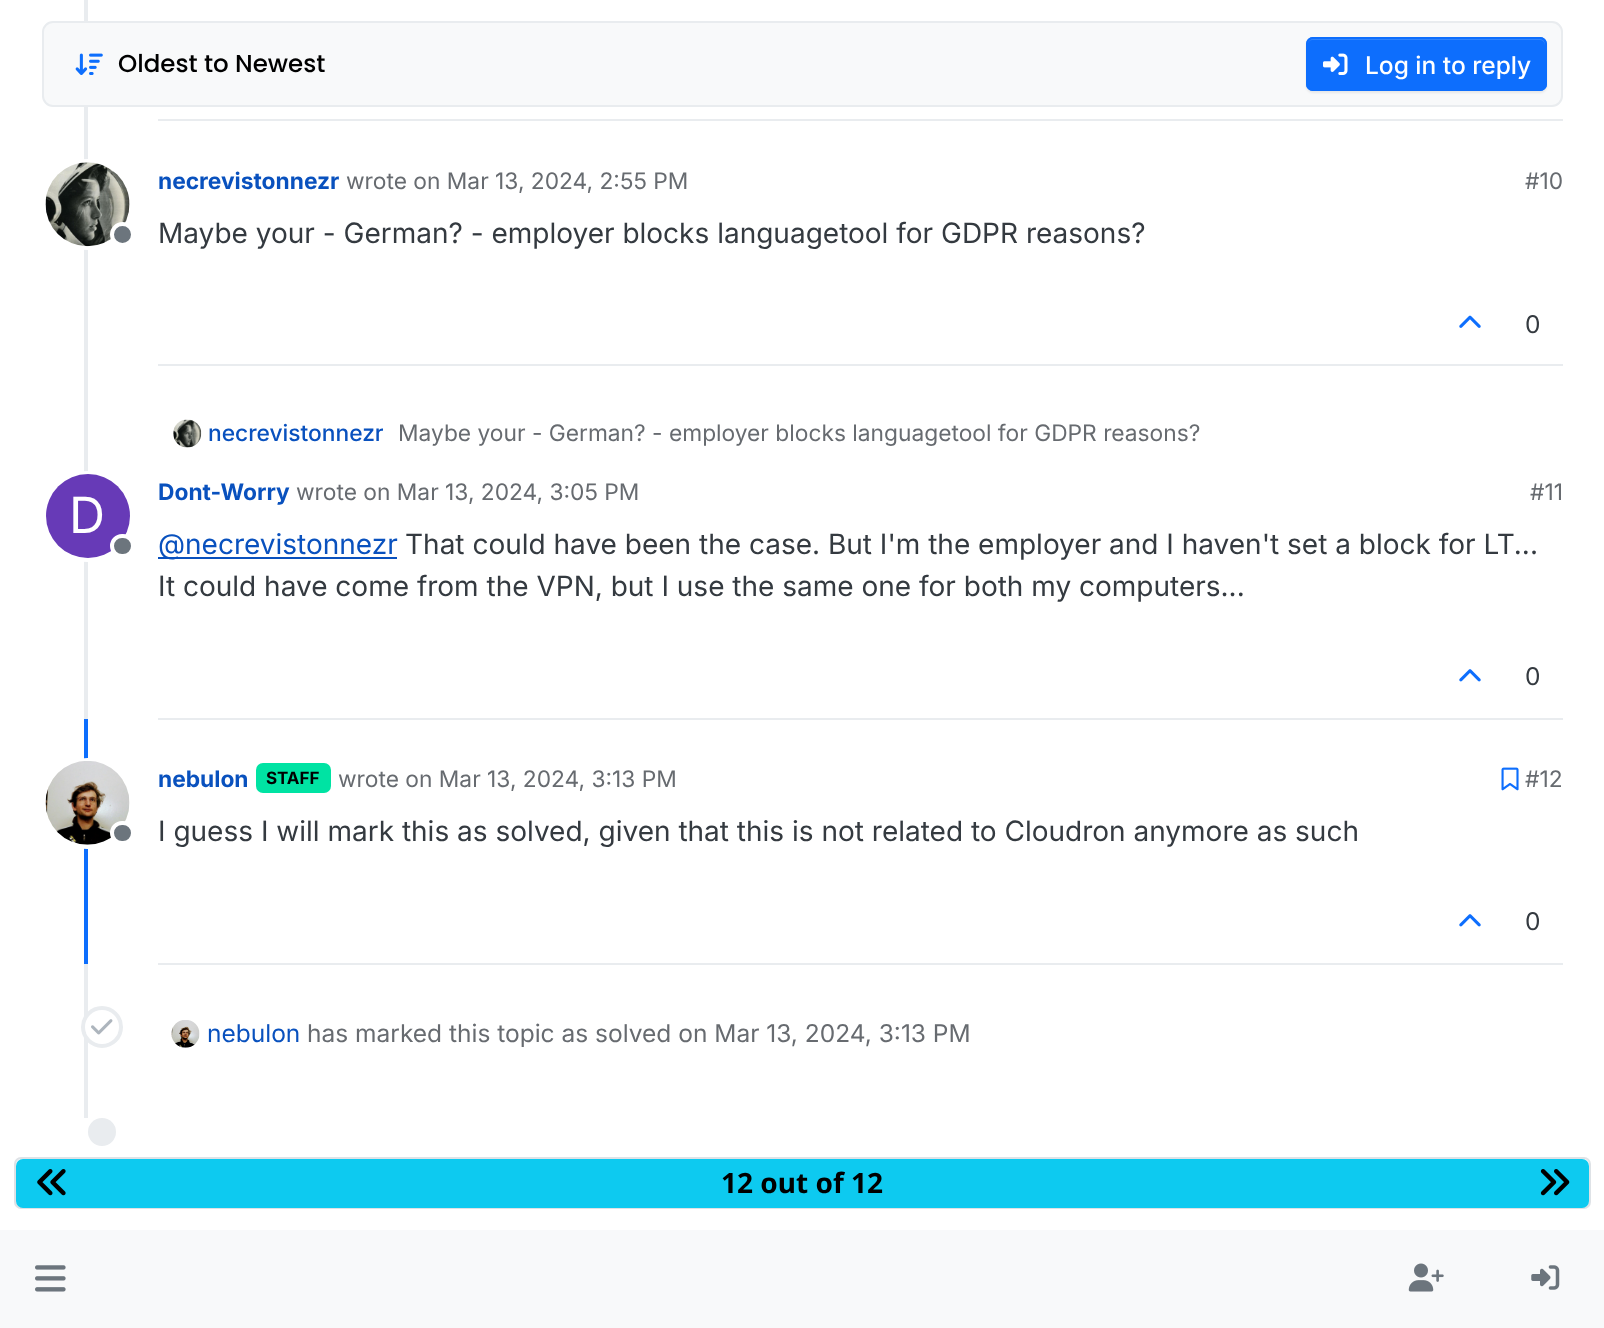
<?xml version="1.0" encoding="UTF-8"?>
<svg xmlns="http://www.w3.org/2000/svg" width="1604" height="1328">
    <defs>
        <filter id="blur1" x="-50%" y="-200%" width="200%" height="500%"><feGaussianBlur stdDeviation="1"/></filter>
        <clipPath id="clip1"><rect x="208" y="417" width="175" height="35"/></clipPath>
    </defs>
    <rect width="100%" height="100%" fill="#FFFFFF"/>
    <rect x="84" y="0" width="4" height="719" fill="#E9ECEF"/>
    <rect x="43" y="22" width="1519" height="84" rx="10" fill="#F8F9FA" stroke="#E9ECEF" stroke-width="2"/>
    <image x="75" y="53" width="28" height="22" href="img_01.png"/>
    <text x="118" y="72" font-family="Poppins" font-size="24.5" font-weight="500" fill="#000000">Oldest to Newest</text>
    <rect x="1306" y="39" width="241" height="54" rx="7" fill="#000000" fill-opacity="0.07" filter="url(#blur1)"/>
    <rect x="1306" y="37" width="241" height="54" rx="7" fill="#0D6EFD"/>
    <path d="M 1312 40 H 1540 C 1543 40 1545 43 1545 46 C 1545 43 1545 40 1541 39 H 1311 C 1307 40 1307 43 1307 46 C 1307 43 1310 40 1312 40 Z" fill="#3184FD"/>
    <rect x="1307" y="38" width="239" height="52" rx="6" fill="none" stroke="#0D6EFD" stroke-width="2"/>
    <image x="1323" y="53" width="25" height="22" href="img_02.png"/>
    <text x="1365" y="74" font-family="Inter" font-size="24.5" font-weight="500" fill="#FFFFFF">Log in to reply</text>
    <rect x="158" y="119" width="1405" height="2" fill="#E9ECEF"/>
    <circle cx="87.5" cy="204.5" r="43.5" fill="none" stroke="#FFFFFF" stroke-width="4"/>
    <image x="45" y="162" width="85" height="85" href="img_03.png"/>
    <circle cx="122.5" cy="234.5" r="10.5" fill="#6C757D" stroke="#FFFFFF" stroke-width="4"/>
    <text x="158" y="189" font-family="Inter" font-size="22.75" font-weight="700" fill="#0951BE">necrevistonnezr</text>
    <text x="346" y="189" font-family="Inter" font-size="22.75" fill="#676B70">wrote on Mar 13, 2024, 2:55 PM</text>
    <text x="1525" y="189" font-family="Inter" font-size="22.75" fill="#676B70">#10</text>
    <text x="158" y="243" font-family="Inter" font-size="28" fill="#343A40">Maybe your - German? - employer blocks languagetool for GDPR reasons?</text>
    <rect x="158" y="364" width="1405" height="2" fill="#E9ECEF"/>
    <image x="1459" y="315" width="22" height="13" href="img_04.png"/>
    <text x="1525" y="333" font-family="Inter" font-size="24.5" fill="#343A40">0</text>
    <image x="173" y="419" width="29" height="29" href="img_05.png"/>
    <g clip-path="url(#clip1)">
        <text x="208" y="441" font-family="Inter" font-size="22.75" font-weight="500" fill="#0951BE">necrevistonnezr</text>
    </g>
    <text x="398" y="441" font-family="Inter" font-size="22.75" fill="#676B70">Maybe your - German? - employer blocks languagetool for GDPR reasons?</text>
    <circle cx="87.5" cy="516.5" r="43.5" fill="none" stroke="#FFFFFF" stroke-width="4"/>
    <circle cx="88" cy="516" r="42" fill="#673AB7"/>
    <text x="69" y="533" font-family="Inter" font-size="50" fill="#FFFFFF">D</text>
    <rect x="112" y="536" width="21" height="20" rx="10" fill="#6C757D" stroke="#FFFFFF" stroke-width="4"/>
    <text x="158" y="500" font-family="Inter" font-size="22.75" font-weight="700" fill="#0951BE">Dont-Worry</text>
    <text x="296" y="500" font-family="Inter" font-size="22.75" fill="#676B70">wrote on Mar 13, 2024, 3:05 PM</text>
    <text x="1530" y="500" font-family="Inter" font-size="22.75" fill="#676B70">#11</text>
    <rect x="158" y="557" width="239" height="2" fill="#0951BE"/>
    <text x="158" y="554" font-family="Inter" font-size="28" fill="#0951BE">@necrevistonnezr</text>
    <text x="405" y="554" font-family="Inter" font-size="28" fill="#343A40">That could have been the case. But I'm the employer and I haven't set a block for LT...</text>
    <text x="158" y="596" font-family="Inter" font-size="28" fill="#343A40">It could have come from the VPN, but I use the same one for both my computers...</text>
    <rect x="158" y="718" width="1405" height="2" fill="#E9ECEF"/>
    <image x="1459" y="669" width="22" height="13" href="img_06.png"/>
    <text x="1525" y="685" font-family="Inter" font-size="24.5" fill="#343A40">0</text>
    <rect x="84" y="719" width="4" height="245" fill="#0D6EFD"/>
    <circle cx="87.5" cy="803.5" r="43.5" fill="#FFFFFF" stroke="#FFFFFF" stroke-width="4"/>
    <image x="45" y="761" width="85" height="84" href="img_07.png"/>
    <rect x="112" y="823" width="21" height="20" rx="10" fill="#6C757D" stroke="#FFFFFF" stroke-width="4"/>
    <text x="158" y="787" font-family="Inter" font-size="22.75" font-weight="700" fill="#0951BE">nebulon</text>
    <rect x="256" y="763" width="75" height="30" rx="7" fill="#00E3A3"/>
    <text x="266" y="784" font-family="Inter" font-size="17" font-weight="700" fill="#000000">STAFF</text>
    <text x="338" y="787" font-family="Inter" font-size="22.75" fill="#676B70">wrote on Mar 13, 2024, 3:13 PM</text>
    <image x="1501" y="767" width="18" height="24" href="img_08.png"/>
    <text x="1525" y="787" font-family="Inter" font-size="22.75" fill="#676B70">#12</text>
    <text x="158" y="841" font-family="Inter" font-size="28" fill="#343A40">I guess I will mark this as solved, given that this is not related to Cloudron anymore as such</text>
    <rect x="158" y="963" width="1405" height="2" fill="#E9ECEF"/>
    <image x="1459" y="914" width="22" height="13" href="img_06.png"/>
    <text x="1525" y="930" font-family="Inter" font-size="24.5" fill="#343A40">0</text>
    <rect x="84" y="964" width="4" height="154" fill="#E9ECEF"/>
    <circle cx="102" cy="1027" r="19" fill="#FFFFFF" stroke="#E9ECEF" stroke-width="4"/>
    <image x="91" y="1019" width="22" height="16" href="img_09.png"/>
    <image x="171" y="1020" width="29" height="28" href="img_10.png"/>
    <text x="207" y="1042" font-family="Inter" font-size="24.5" fill="#0951BE">nebulon</text>
    <text x="307" y="1042" font-family="Inter" font-size="24.5" fill="#676B70">has marked this topic as solved on Mar 13, 2024, 3:13 PM</text>
    <circle cx="102" cy="1132" r="14" fill="#E9ECEF"/>
    <rect x="15" y="1158" width="1575" height="50" rx="6" fill="#F8F9FA" stroke="#DEE2E6" stroke-width="2"/>
    <rect x="16" y="1159" width="1573" height="49" rx="7" fill="#0DCAF0"/>
    <image x="37" y="1169" width="29" height="27" href="img_11.png"/>
    <text x="721" y="1193" font-family="Noto Sans" font-size="28" font-weight="700" fill="#000000">12 out of 12</text>
    <image x="1540" y="1169" width="30" height="27" href="img_12.png"/>
    <rect x="0" y="1230" width="1604" height="98" fill="#F8F9FA"/>
    <image x="35" y="1265" width="31" height="27" href="img_13.png"/>
    <image x="1408" y="1263" width="36" height="29" href="img_14.png"/>
    <image x="1531" y="1265" width="29" height="25" href="img_15.png"/>
</svg>
